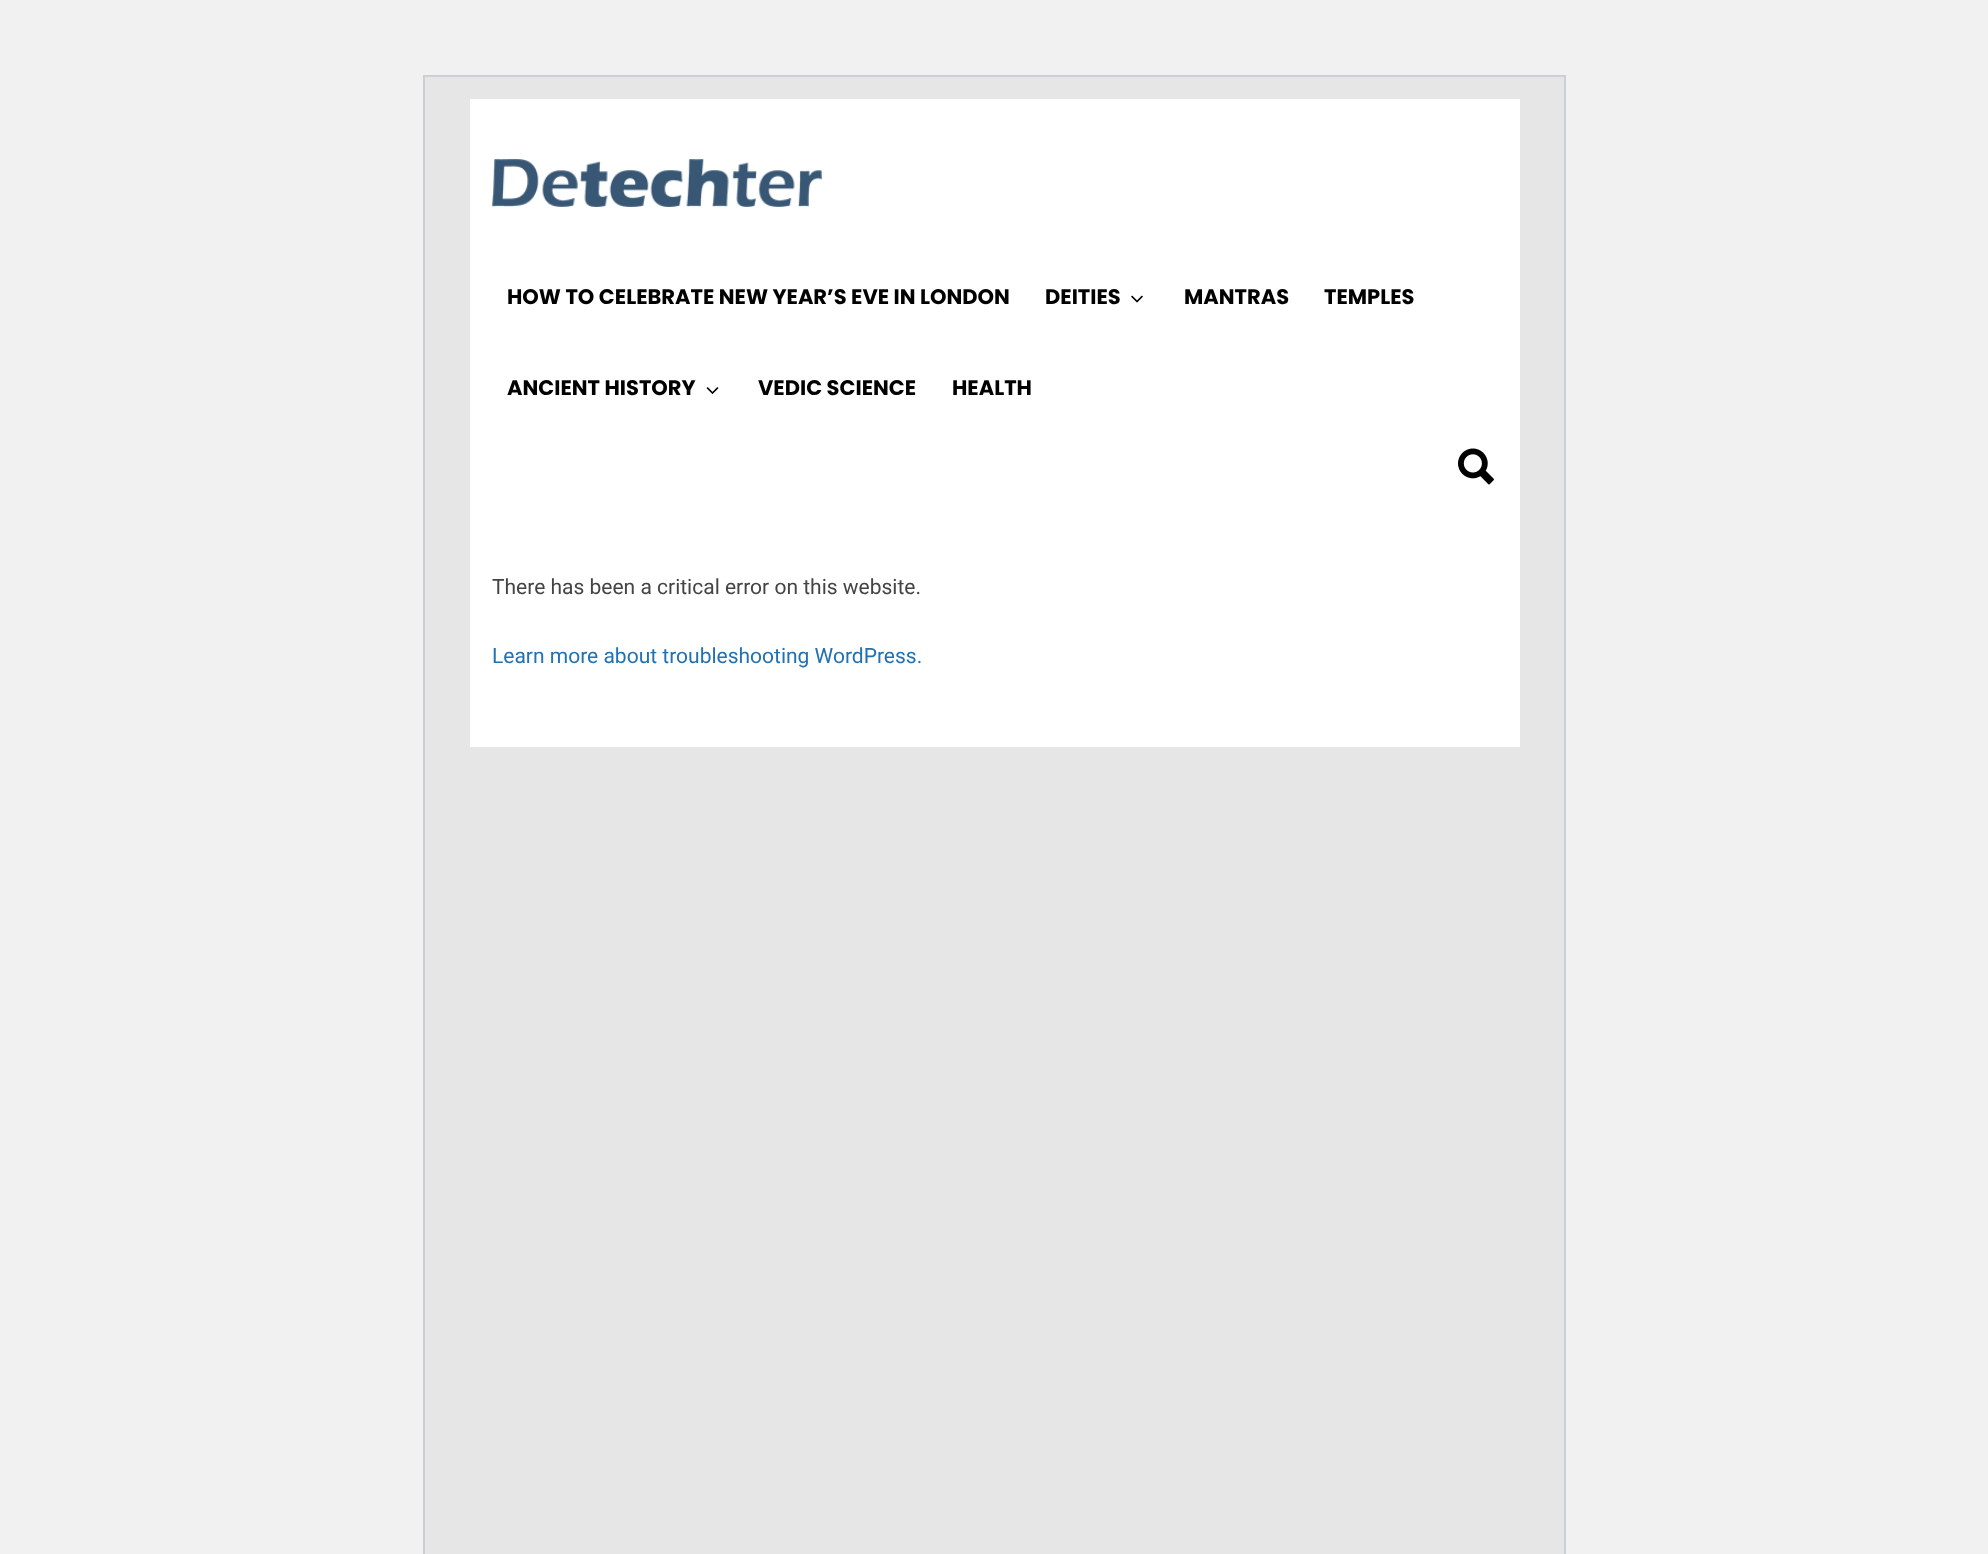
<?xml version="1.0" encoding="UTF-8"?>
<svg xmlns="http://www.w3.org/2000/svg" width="1988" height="1554">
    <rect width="100%" height="100%" fill="#F1F1F1"/>
    <rect x="424" y="76" width="1141" height="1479" fill="#E6E6E6" stroke="#CCD0D4" stroke-width="2"/>
    <rect x="470" y="99" width="1050" height="648" fill="#FFFFFF"/>
    <image x="492" y="159" width="330" height="48" href="img_01.png"/>
    <text x="507" y="304" font-family="Poppins" font-size="21" font-weight="700" fill="#000000">HOW TO CELEBRATE NEW YEAR’S EVE IN LONDON</text>
    <text x="1045" y="304" font-family="Poppins" font-size="21" font-weight="700" fill="#000000">DEITIES</text>
    <image x="1131" y="295" width="12" height="8" href="img_02.png"/>
    <text x="1184" y="304" font-family="Poppins" font-size="21" font-weight="700" fill="#000000">MANTRAS</text>
    <text x="1324" y="304" font-family="Poppins" font-size="21" font-weight="700" fill="#000000">TEMPLES</text>
    <text x="507" y="395" font-family="Poppins" font-size="21" font-weight="700" fill="#000000">ANCIENT HISTORY</text>
    <image x="706" y="387" width="13" height="7" href="img_03.png"/>
    <text x="758" y="395" font-family="Poppins" font-size="21" font-weight="700" fill="#000000">VEDIC SCIENCE</text>
    <text x="952" y="395" font-family="Poppins" font-size="21" font-weight="700" fill="#000000">HEALTH</text>
    <image x="1458" y="448" width="36" height="37" href="img_04.png"/>
    <text x="492" y="594" font-family="Roboto" font-size="21" fill="#444444">There has been a critical error on this website.</text>
    <text x="492" y="663" font-family="Roboto" font-size="21" fill="#2271B1">Learn more about troubleshooting WordPress.</text>
</svg>
